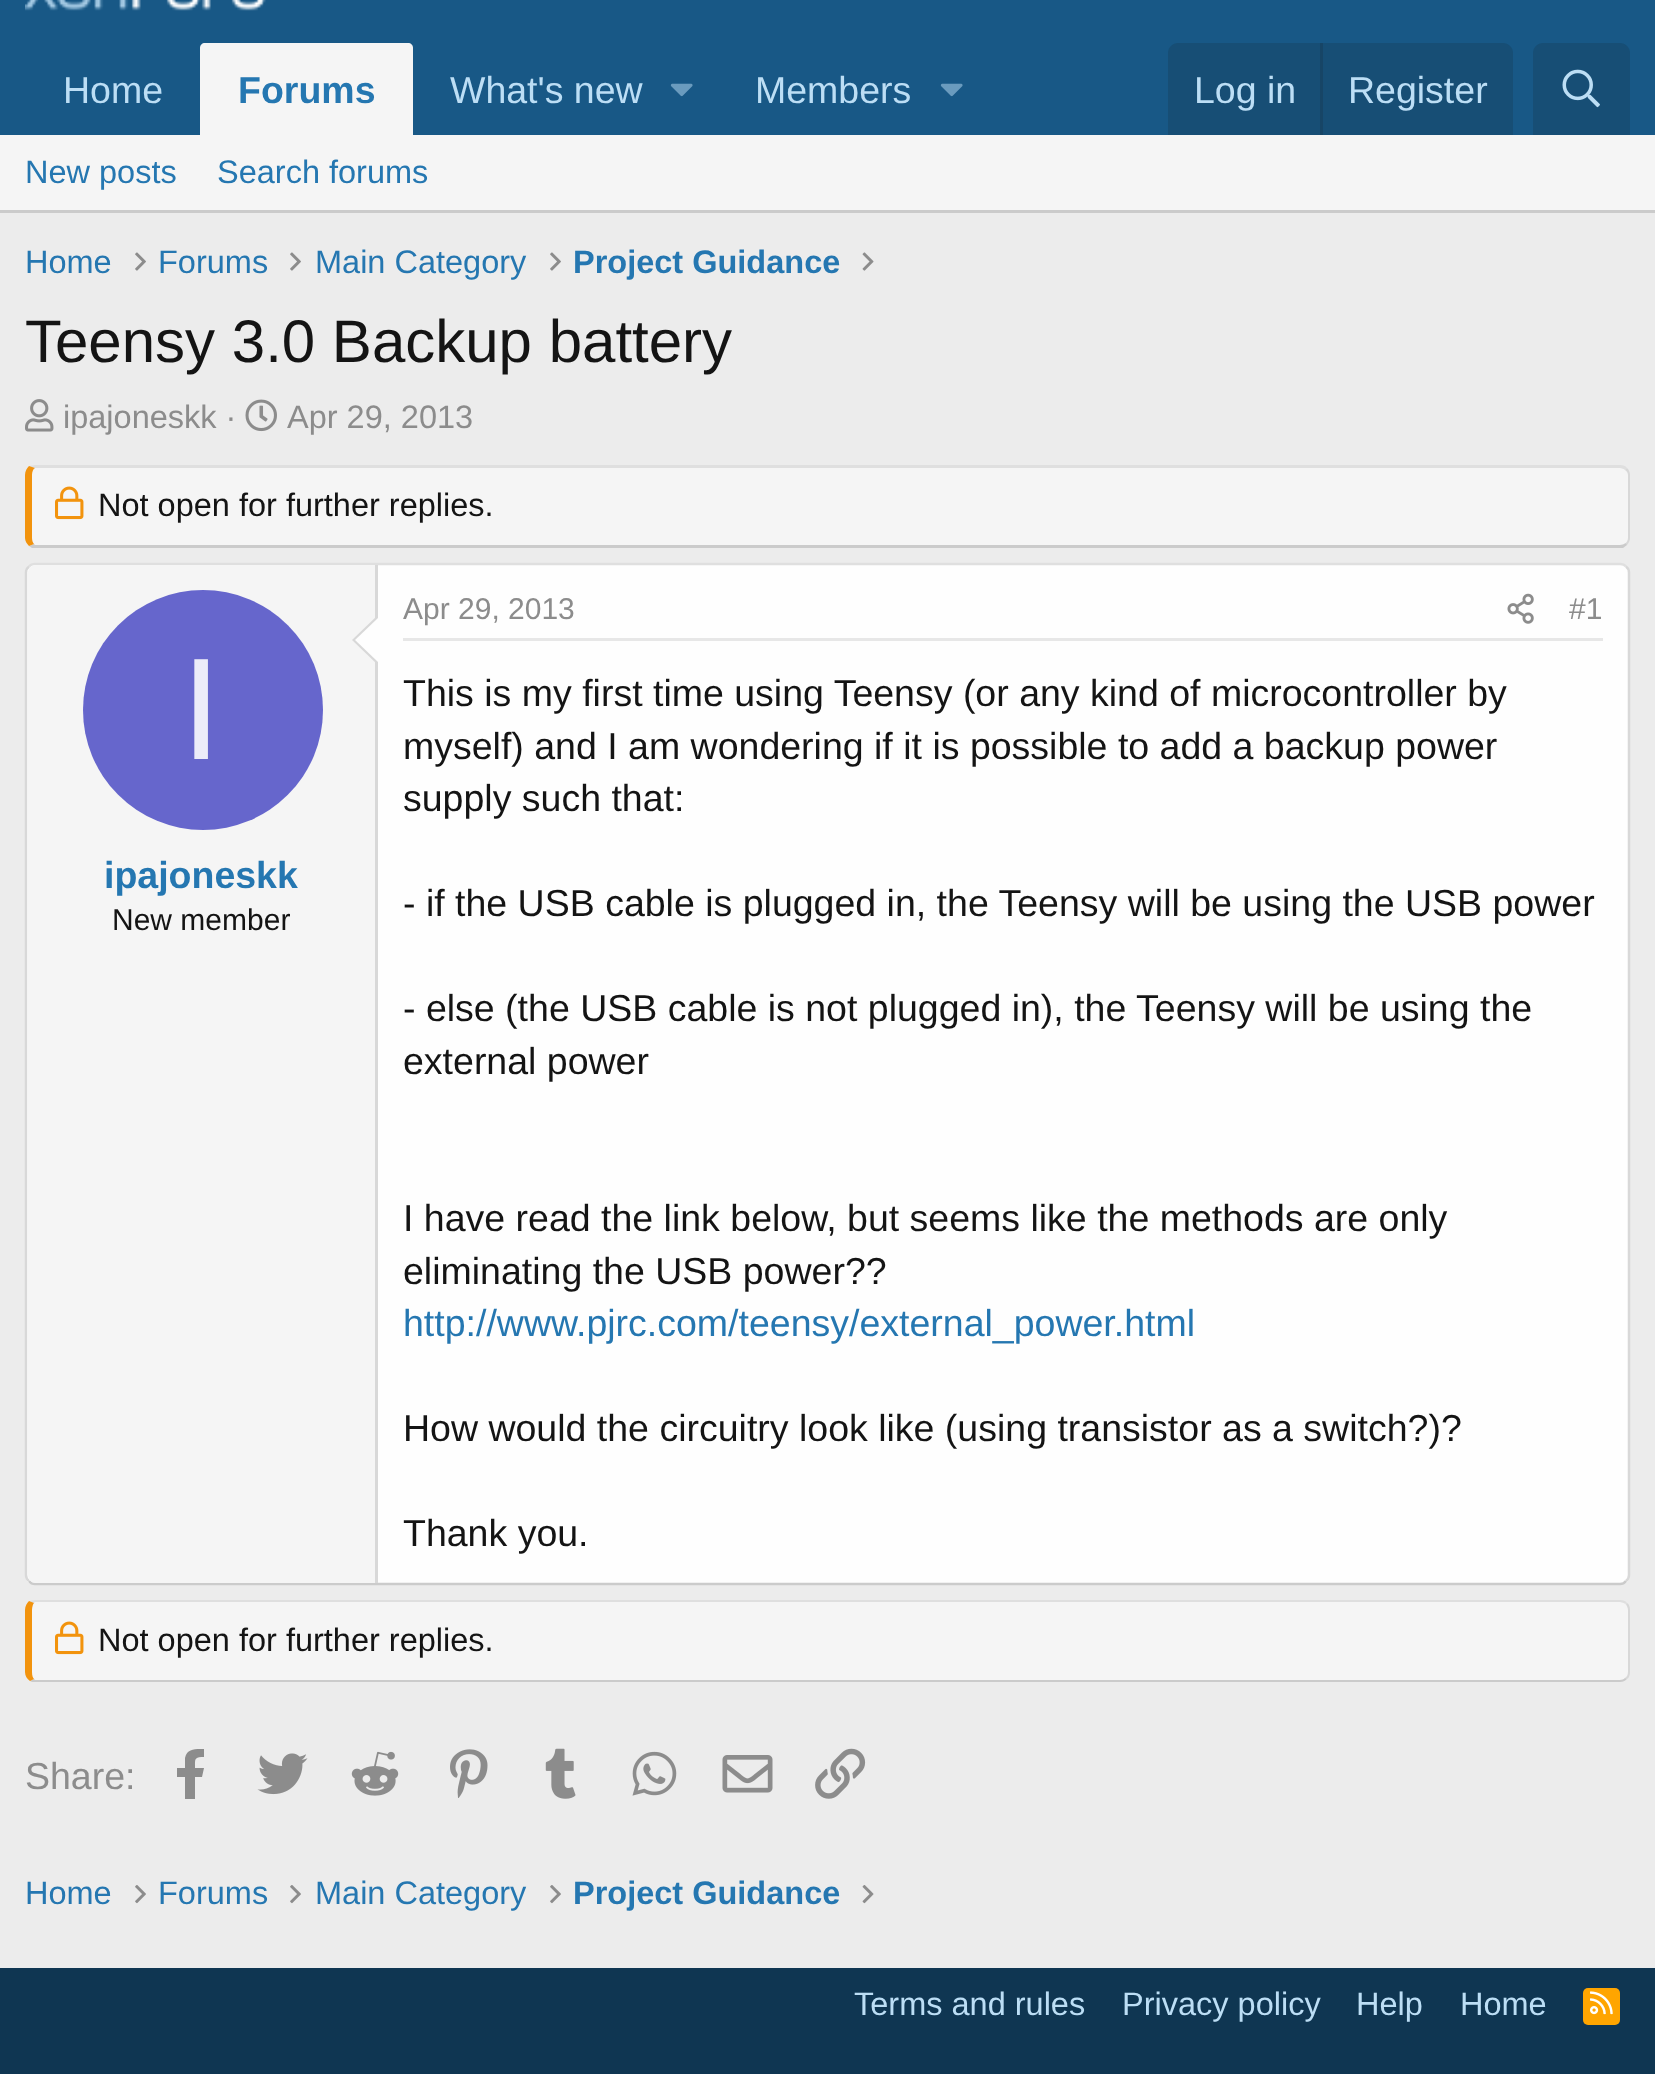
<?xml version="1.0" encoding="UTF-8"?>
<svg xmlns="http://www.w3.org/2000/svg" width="1655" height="2074">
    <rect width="100%" height="100%" fill="#ECECEC"/>
    <rect x="0" y="0" width="1655" height="135" fill="#185886"/>
    <image x="25" y="0" width="241" height="11" href="img_01.png"/>
    <text x="63" y="103" font-family="Liberation Sans" font-size="37.5" fill="#BCDEF5">Home</text>
    <path d="M 205 43 H 408 C 411 43 413 45 413 48 V 135 H 200 V 48 C 200 45 202 43 205 43 Z" fill="#F5F5F5"/>
    <text x="238" y="103" font-family="Liberation Sans" font-size="37.5" font-weight="700" fill="#2577B1">Forums</text>
    <text x="450" y="103" font-family="Liberation Sans" font-size="37.5" fill="#BCDEF5">What's new</text>
    <image x="670" y="83" width="23" height="14" href="img_02.png"/>
    <text x="755" y="103" font-family="Liberation Sans" font-size="37.5" fill="#BCDEF5">Members</text>
    <image x="940" y="83" width="23" height="14" href="img_02.png"/>
    <path d="M 1178 43 H 1503 C 1508.5 43 1513 47.5 1513 53 V 135 H 1168 V 53 C 1168 47.5 1172.5 43 1178 43 Z" fill="#174E75"/>
    <text x="1194" y="103" font-family="Liberation Sans" font-size="37.5" fill="#BCDEF5">Log in</text>
    <rect x="1320" y="43" width="3" height="92" fill="#174566"/>
    <text x="1348" y="103" font-family="Liberation Sans" font-size="37.5" fill="#BCDEF5">Register</text>
    <path d="M 1543 43 H 1620 C 1625.5 43 1630 47.5 1630 53 V 135 H 1533 V 53 C 1533 47.5 1537.5 43 1543 43 Z" fill="#174E75"/>
    <image x="1562" y="69" width="38" height="39" href="img_03.png"/>
    <rect x="0" y="135" width="1655" height="75" fill="#F5F5F5"/>
    <rect x="0" y="210" width="1655" height="3" fill="#CBCBCB"/>
    <text x="25" y="183" font-family="Liberation Sans" font-size="32.5" fill="#2577B1">New posts</text>
    <text x="217" y="183" font-family="Liberation Sans" font-size="32.5" fill="#2577B1">Search forums</text>
    <text x="25" y="273" font-family="Liberation Sans" font-size="32.5" fill="#2577B1">Home</text>
    <image x="135" y="252" width="11" height="19" href="img_04.png"/>
    <text x="158" y="273" font-family="Liberation Sans" font-size="32.5" fill="#2577B1">Forums</text>
    <image x="290" y="252" width="11" height="19" href="img_04.png"/>
    <text x="315" y="273" font-family="Liberation Sans" font-size="32.5" fill="#2577B1">Main Category</text>
    <image x="550" y="252" width="11" height="19" href="img_04.png"/>
    <text x="573" y="273" font-family="Liberation Sans" font-size="32.5" font-weight="700" fill="#2577B1">Project Guidance</text>
    <image x="862" y="252" width="12" height="19" href="img_05.png"/>
    <text x="25" y="362" font-family="Liberation Sans" font-size="60" fill="#141414">Teensy 3.0 Backup battery</text>
    <image x="25" y="399" width="29" height="33" href="img_06.png"/>
    <text x="63" y="428" font-family="Liberation Sans" font-size="32.5" fill="#8C8C8C">ipajoneskk ·</text>
    <image x="245" y="399" width="32" height="33" href="img_07.png"/>
    <text x="287" y="428" font-family="Liberation Sans" font-size="32.5" fill="#8C8C8C">Apr 29, 2013</text>
    <path d="M 35 468 H 1620 C 1624 468 1628 471 1628 475 V 538 C 1628 542 1624 545 1620 545 H 35 C 34 545 32 542 32 538 V 475 C 32 471 34 468 35 468 Z" fill="#F5F5F5"/>
    <path d="M 35 465 C 33 465 31 466 29 466 L 35 468 H 1620 C 1622 468 1624 469 1625 470 L 1627 468 C 1626 466 1623 465 1620 465 Z" fill="#DFDFDF"/>
    <path d="M 1630 538 V 475 C 1630 472 1629 470 1627 468 L 1625 470 C 1627 471 1628 473 1628 475 V 538 C 1628 540 1627 542 1626 543 L 1627 545 C 1629 543 1630 540 1630 538 Z" fill="#D8D8D8"/>
    <path d="M 32 548 L 29 546 L 34 544 L 35 545 H 1620 C 1622 545 1624 544 1626 543 L 1627 545 L 1623 548 Z" fill="#CBCBCB"/>
    <path d="M 25 475 V 538 C 25 541 27 544 29 546 L 34 544 C 33 543 32 541 32 538 V 475 C 32 472 33 469 35 468 L 29 466 C 27 468 25 471 25 475 Z" fill="#F2930D"/>
    <image x="55" y="486" width="29" height="34" href="img_08.png"/>
    <text x="98" y="516" font-family="Liberation Sans" font-size="32.5" fill="#141414">Not open for further replies.</text>
    <rect x="25" y="563" width="1605" height="1022" rx="10" fill="#FEFEFE"/>
    <path d="M 29 566.5 C 30.5 564.5 32.5 564 35 564 H 1620 C 1622.5 564 1624.5 564.5 1626 566.5" fill="none" stroke="#DFDFDF" stroke-width="2.5"/>
    <path d="M 1626 566.5 C 1628 568 1629 570 1629 572.5 V 1575 C 1629 1577.5 1628 1579.5 1626 1581" fill="none" stroke="#D8D8D8" stroke-width="2.5"/>
    <path d="M 1626 1581 C 1624.5 1583 1622.5 1584 1620 1584 H 35 C 32.5 1584 30.5 1583 29 1581" fill="none" stroke="#CBCBCB" stroke-width="2.5"/>
    <path d="M 29 1581 C 27 1579.5 26 1577.5 26 1575 V 572.5 C 26 570 27 568 29 566.5" fill="none" stroke="#D8D8D8" stroke-width="2.5"/>
    <path d="M 36 565 H 378 V 1583 H 36 C 31.5 1583 28 1579.5 28 1575 V 573 C 28 568.5 31.5 565 36 565 Z" fill="#F5F5F5"/>
    <rect x="375" y="565" width="3" height="1018" fill="#D8D8D8"/>
    <path d="M 378 615 V 665 L 352 640 Z" fill="#D8D8D8"/>
    <path d="M 378 618 V 662 L 355 640 Z" fill="#FEFEFE"/>
    <circle cx="203" cy="710" r="120" fill="#6666CC"/>
    <text x="181" y="759" font-family="Liberation Sans" font-size="145" fill="#ECECF9">I</text>
    <text x="104" y="888" font-family="Liberation Sans" font-size="37.5" font-weight="700" fill="#2577B1">ipajoneskk</text>
    <text x="112" y="930" font-family="Liberation Sans" font-size="30" fill="#141414">New member</text>
    <rect x="403" y="638" width="1200" height="3" fill="#E7E7E7"/>
    <text x="403" y="619" font-family="Liberation Sans" font-size="30" fill="#8C8C8C">Apr 29, 2013</text>
    <image x="1507" y="593" width="27" height="31" href="img_09.png"/>
    <text x="1569" y="619" font-family="Liberation Sans" font-size="30" fill="#8C8C8C">#1</text>
    <text font-family="Liberation Sans" font-size="37.5" fill="#141414">
        <tspan x="403" y="706">This is my first time using Teensy (or any kind of microcontroller by</tspan>
        <tspan x="403" y="759">myself) and I am wondering if it is possible to add a backup power</tspan>
        <tspan x="403" y="811">supply such that:</tspan>
    </text>
    <text x="403" y="916" font-family="Liberation Sans" font-size="37.5" fill="#141414">- if the USB cable is plugged in, the Teensy will be using the USB power</text>
    <text font-family="Liberation Sans" font-size="37.5" fill="#141414">
        <tspan x="403" y="1021">- else (the USB cable is not plugged in), the Teensy will be using the</tspan>
        <tspan x="403" y="1074">external power</tspan>
    </text>
    <text font-family="Liberation Sans" font-size="37.5" fill="#141414">
        <tspan x="403" y="1231">I have read the link below, but seems like the methods are only</tspan>
        <tspan x="403" y="1284">eliminating the USB power??</tspan>
    </text>
    <text x="403" y="1336" font-family="Liberation Sans" font-size="37.5" fill="#2577B1">http://www.pjrc.com/teensy/external_power.html</text>
    <text x="403" y="1441" font-family="Liberation Sans" font-size="37.5" fill="#141414">How would the circuitry look like (using transistor as a switch?)?</text>
    <text x="403" y="1546" font-family="Liberation Sans" font-size="37.5" fill="#141414">Thank you.</text>
    <path d="M 35 1602 H 1620 C 1624 1602 1628 1606 1628 1610 V 1672 C 1628 1677 1624 1680 1620 1680 H 35 C 34 1680 32 1677 32 1672 V 1610 C 32 1606 34 1602 35 1602 Z" fill="#F5F5F5"/>
    <path d="M 35 1600 C 33 1600 31 1601 29 1601 L 34 1603 L 35 1602 H 1620 C 1622 1602 1624 1603 1626 1604 L 1627 1603 C 1626 1601 1623 1600 1620 1600 Z" fill="#DFDFDF"/>
    <path d="M 1630 1672 V 1610 C 1630 1607 1629 1604 1627 1603 L 1626 1604 C 1627 1606 1628 1608 1628 1610 V 1672 C 1628 1675 1627 1677 1625 1678 L 1627 1679 C 1629 1678 1630 1675 1630 1672 Z" fill="#D8D8D8"/>
    <path d="M 1627 1679 C 1625 1681 1623 1682 1620 1682 H 35 C 33 1682 31 1682 30 1681 L 34 1679 L 35 1680 H 1620 C 1622 1680 1624 1679 1625 1678 Z" fill="#CBCBCB"/>
    <path d="M 25 1610 V 1672 C 25 1676 27 1679 30 1681 L 34 1679 C 33 1678 32 1676 32 1672 V 1610 C 32 1607 33 1604 34 1603 L 29 1601 C 27 1603 25 1606 25 1610 Z" fill="#F2930D"/>
    <image x="55" y="1621" width="29" height="34" href="img_08.png"/>
    <text x="98" y="1651" font-family="Liberation Sans" font-size="32.5" fill="#141414">Not open for further replies.</text>
    <text x="25" y="1789" font-family="Liberation Sans" font-size="37.5" fill="#8C8C8C">Share:</text>
    <path d="M 202 1777 H 195 V 1799 H 185 V 1777 H 177 V 1768 H 185 V 1758 C 187 1748 196 1749 204 1749 V 1757 C 194 1757 195 1759 195 1768 H 204 Z" fill="#8C8C8C"/>
    <image x="257" y="1753" width="51" height="42" href="img_10.png"/>
    <image x="351" y="1751" width="48" height="45" href="img_11.png"/>
    <image x="450" y="1749" width="38" height="49" href="img_12.png"/>
    <image x="545" y="1748" width="31" height="51" href="img_13.png"/>
    <image x="632" y="1751" width="45" height="45" href="img_14.png"/>
    <image x="722" y="1755" width="51" height="38" href="img_15.png"/>
    <image x="815" y="1748" width="51" height="51" href="img_16.png"/>
    <text x="25" y="1904" font-family="Liberation Sans" font-size="32.5" fill="#2577B1">Home</text>
    <image x="135" y="1885" width="11" height="19" href="img_17.png"/>
    <text x="158" y="1904" font-family="Liberation Sans" font-size="32.5" fill="#2577B1">Forums</text>
    <image x="290" y="1885" width="11" height="19" href="img_17.png"/>
    <text x="315" y="1904" font-family="Liberation Sans" font-size="32.5" fill="#2577B1">Main Category</text>
    <image x="550" y="1885" width="11" height="19" href="img_17.png"/>
    <text x="573" y="1904" font-family="Liberation Sans" font-size="32.5" font-weight="700" fill="#2577B1">Project Guidance</text>
    <image x="862" y="1885" width="12" height="19" href="img_18.png"/>
    <rect x="0" y="1968" width="1655" height="106" fill="#0F3652"/>
    <text x="854" y="2015" font-family="Liberation Sans" font-size="32.5" fill="#BCDEF5">Terms and rules</text>
    <text x="1122" y="2015" font-family="Liberation Sans" font-size="32.5" fill="#BCDEF5">Privacy policy</text>
    <text x="1356" y="2015" font-family="Liberation Sans" font-size="32.5" fill="#BCDEF5">Help</text>
    <text x="1460" y="2015" font-family="Liberation Sans" font-size="32.5" fill="#BCDEF5">Home</text>
    <rect x="1583" y="1988" width="37" height="37" rx="5" fill="#FFA500"/>
    <image x="1590" y="1991" width="23" height="24" href="img_19.png"/>
</svg>
